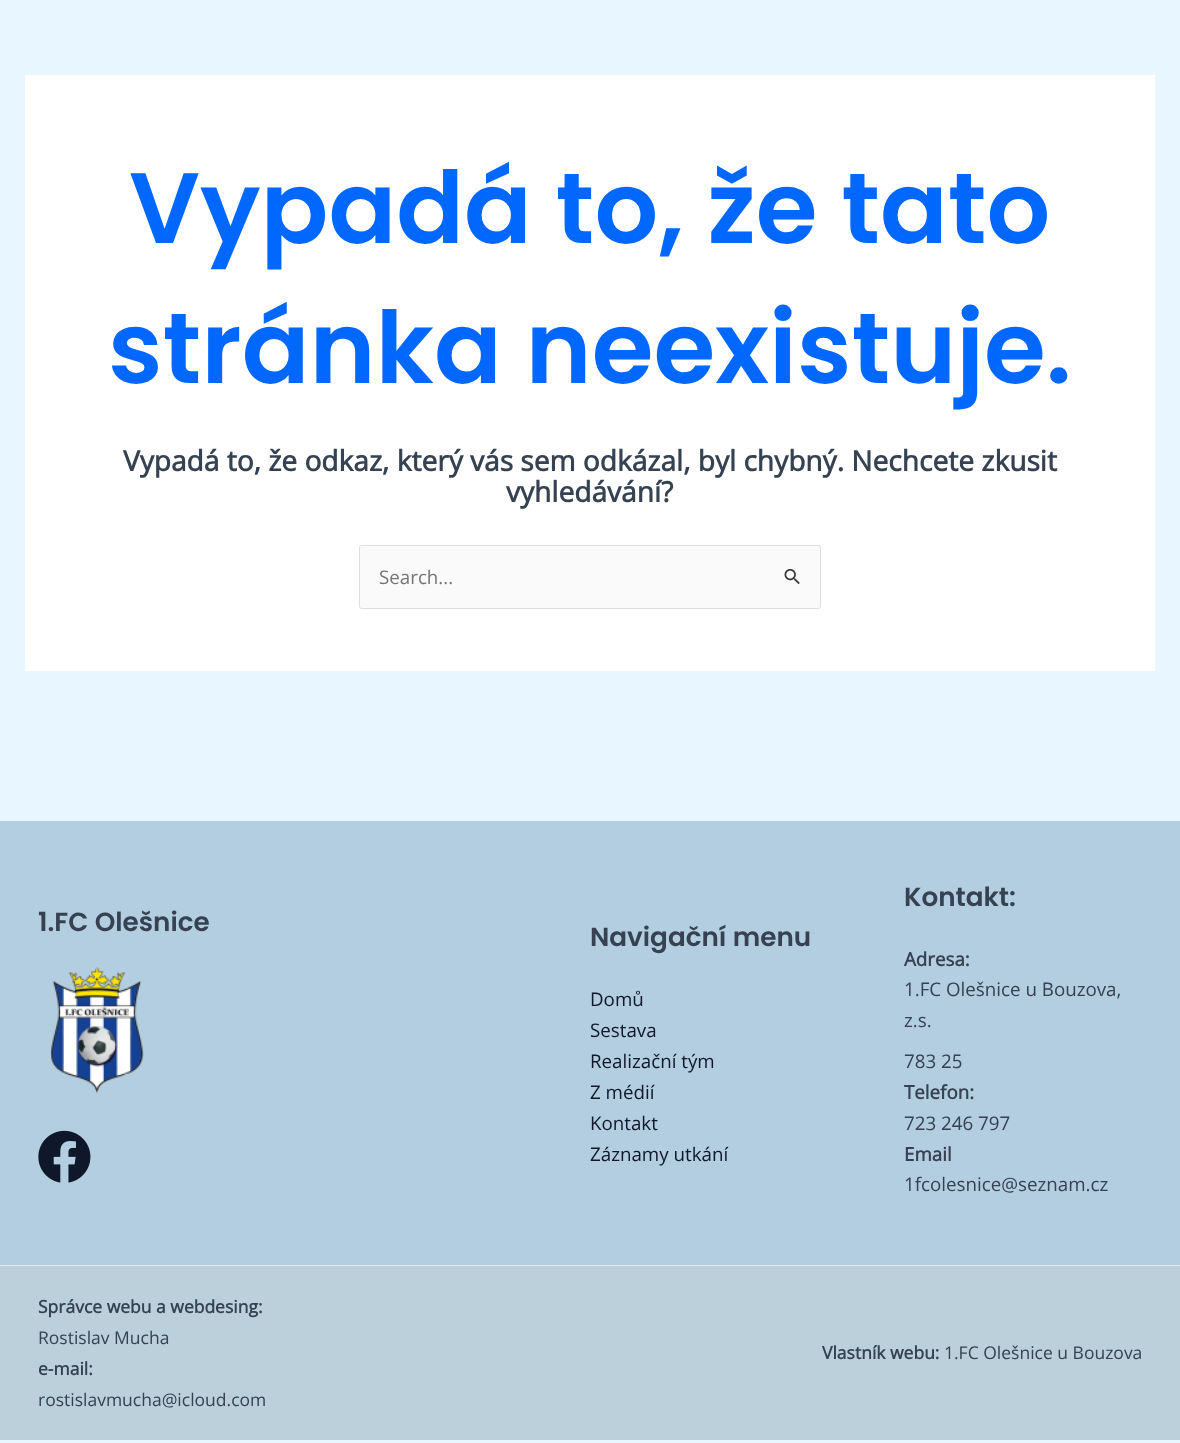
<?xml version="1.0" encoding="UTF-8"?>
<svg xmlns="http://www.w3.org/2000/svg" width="1180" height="1443">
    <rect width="100%" height="100%" fill="#E7F6FF"/>
    <rect x="25" y="75" width="1130" height="596" fill="#FFFFFF"/>
    <text x="129" y="243" font-family="Poppins" font-size="100" font-weight="600" fill="#0067FF">Vypadá to, že tato</text>
    <text x="108" y="383" font-family="Poppins" font-size="100" font-weight="600" fill="#0067FF">stránka neexistuje.</text>
    <text x="123" y="471" font-family="Open Sans" font-size="28.1" font-weight="700" fill="#364151">Vypadá to, že odkaz, který vás sem odkázal, byl chybný. Nechcete zkusit</text>
    <text x="506" y="502" font-family="Open Sans" font-size="28.1" font-weight="700" fill="#364151">vyhledávání?</text>
    <rect x="359.5" y="545.5" width="461" height="63" rx="2" fill="#FAFAFA" stroke="#DDDDDD"/>
    <text x="379" y="584" font-family="Open Sans" font-size="18.75" fill="#757575">Search...</text>
    <image x="784" y="568" width="16" height="17" href="img_01.png"/>
    <rect x="0" y="821" width="1180" height="444" fill="#B2CEE0"/>
    <text x="38" y="931" font-family="Poppins" font-size="26.25" font-weight="600" fill="#364151">1.FC Olešnice</text>
    <image x="50" y="967" width="94" height="126" href="img_02.png"/>
    <image x="38" y="1130" width="53" height="53" href="img_03.png"/>
    <text x="904" y="906" font-family="Poppins" font-size="26.25" font-weight="600" fill="#364151">Kontakt:</text>
    <text x="904" y="966" font-family="Open Sans" font-size="18.75" font-weight="700" fill="#364151">Adresa:</text>
    <text font-family="Open Sans" font-size="18.75" fill="#364151">
        <tspan x="904" y="996">1.FC Olešnice u Bouzova,</tspan>
        <tspan x="904" y="1027">z.s.</tspan>
    </text>
    <text x="904" y="1068" font-family="Open Sans" font-size="18.75" fill="#364151">783 25</text>
    <text x="904" y="1099" font-family="Open Sans" font-size="18.75" font-weight="700" fill="#364151">Telefon:</text>
    <text x="904" y="1130" font-family="Open Sans" font-size="18.75" fill="#364151">723 246 797</text>
    <text x="904" y="1161" font-family="Open Sans" font-size="18.75" font-weight="700" fill="#364151">Email</text>
    <text x="904" y="1191" font-family="Open Sans" font-size="18.75" fill="#364151">1fcolesnice@seznam.cz</text>
    <text x="590" y="946" font-family="Poppins" font-size="26.25" font-weight="600" fill="#364151">Navigační menu</text>
    <text font-family="Open Sans" font-size="18.75" fill="#0F172A">
        <tspan x="590" y="1006">Domů</tspan>
        <tspan x="590" y="1037">Sestava</tspan>
        <tspan x="590" y="1068">Realizační tým</tspan>
        <tspan x="590" y="1099">Z médií</tspan>
        <tspan x="590" y="1130">Kontakt</tspan>
        <tspan x="590" y="1161">Záznamy utkání</tspan>
    </text>
    <rect x="0" y="1266" width="1180" height="174" fill="#BBD0DA"/>
    <rect x="0" y="1265" width="1180" height="1" fill="#E7E7E7"/>
    <text x="38" y="1313" font-family="Open Sans" font-size="17.5" font-weight="700" fill="#364151">Správce webu a webdesing:</text>
    <text x="38" y="1344" font-family="Open Sans" font-size="17.5" fill="#364151">Rostislav Mucha</text>
    <text x="38" y="1375" font-family="Open Sans" font-size="17.5" font-weight="700" fill="#364151">e-mail:</text>
    <text x="38" y="1406" font-family="Open Sans" font-size="17.5" fill="#364151">rostislavmucha@icloud.com</text>
    <text x="822" y="1359" font-family="Open Sans" font-size="17.5" font-weight="700" fill="#364151">Vlastník webu:</text>
    <text x="944" y="1359" font-family="Open Sans" font-size="17.5" fill="#364151">1.FC Olešnice u Bouzova</text>
</svg>
